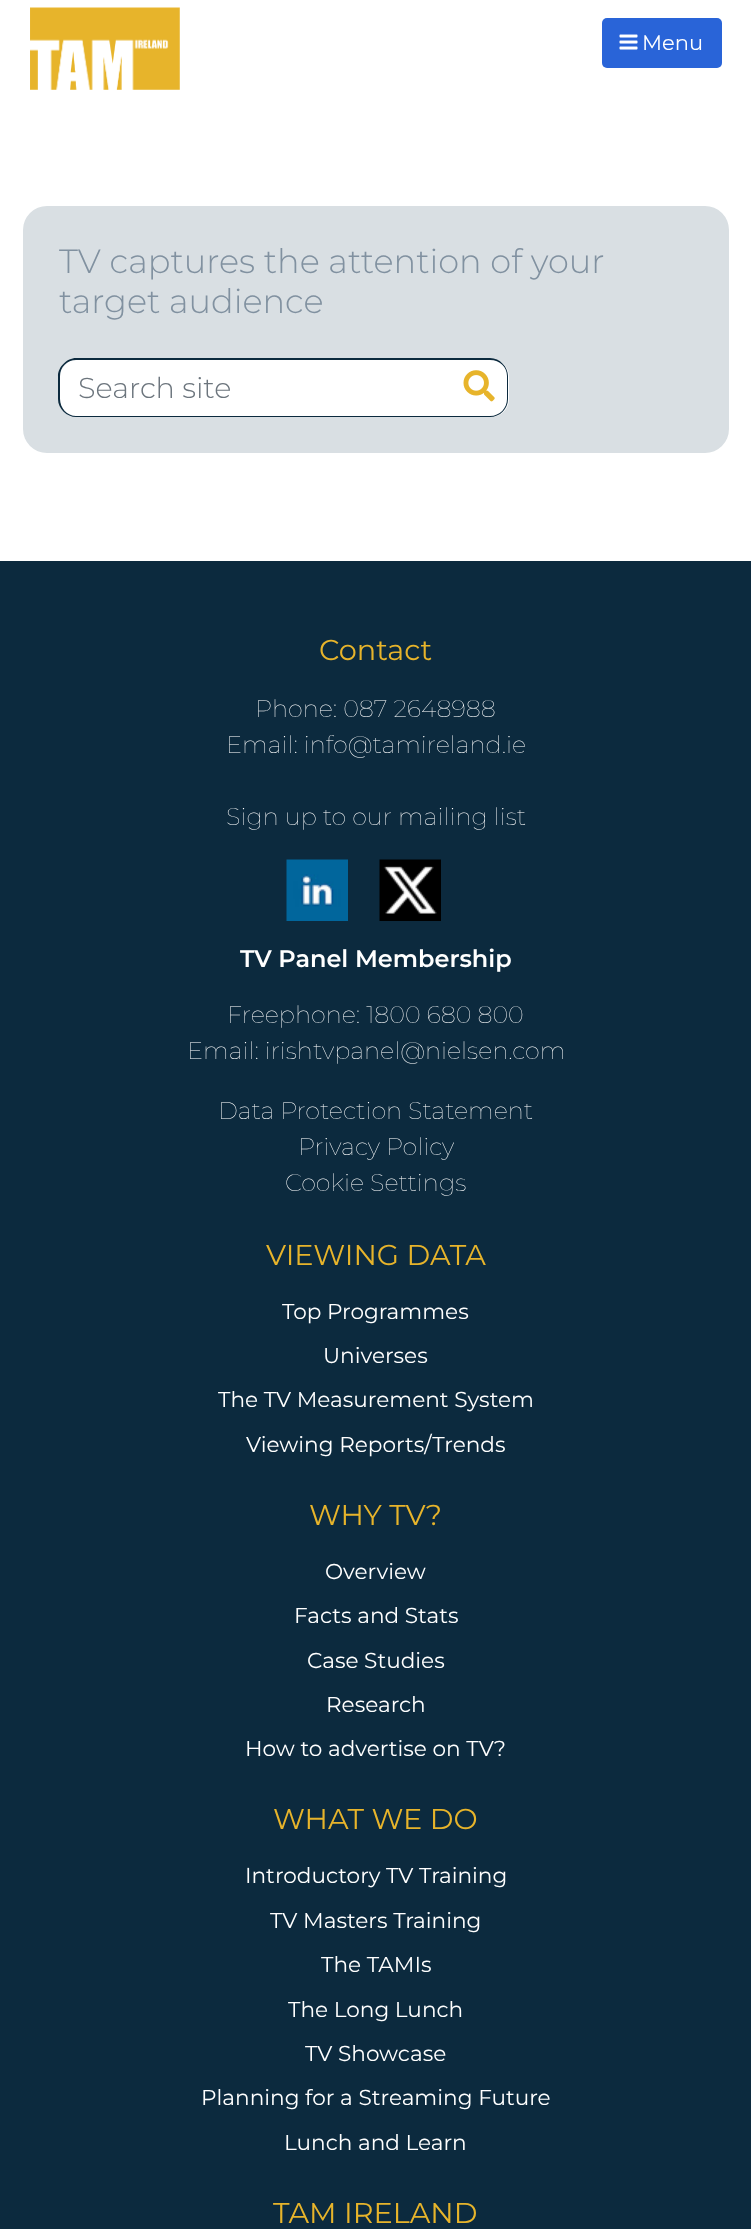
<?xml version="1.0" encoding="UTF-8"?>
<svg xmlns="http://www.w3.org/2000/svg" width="751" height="2229">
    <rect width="100%" height="100%" fill="#FFFFFF"/>
    <image x="30" y="7" width="150" height="83" href="img_01.png"/>
    <rect x="602" y="18" width="120" height="50" rx="5" fill="#2964D8"/>
    <image x="619" y="34" width="19" height="16" href="img_02.png"/>
    <text x="642" y="50" font-family="Montserrat" font-size="21" fill="#FFFFFF">Menu</text>
    <rect x="23" y="206" width="706" height="247" rx="24" fill="#D9DFE3"/>
    <text font-family="Montserrat" font-size="33.6" font-weight="300" fill="#8191A0">
        <tspan x="59" y="273">TV captures the attention of your</tspan>
        <tspan x="59" y="313">target audience</tspan>
    </text>
    <path d="M 77 360 H 452 V 416 H 77 C 67.5 416 60 408.5 60 399 V 377 C 60 367.5 67.5 360 77 360 Z" fill="#FFFFFF"/>
    <path d="M 76 358 H 452 V 417 H 76 C 67 417 58 409 58 399 V 376 C 58 367 67 358 76 358 Z M 76 360 H 452 V 416 H 76 C 67 416 60 408 60 399 V 376 C 60 367 67 360 76 360 Z" fill="#0C2A3E" fill-rule="evenodd"/>
    <text x="78" y="398" font-family="Montserrat" font-size="28.75" font-weight="300" fill="#6C757D">Search site</text>
    <path d="M 452 359 H 491 C 501 359 509 367 509 377 V 399 C 509 409 501 417 491 417 H 452 Z" fill="#FFFFFF"/>
    <path d="M 452 358 H 490 C 500 358 508 367 508 376 V 399 C 508 409 500 417 490 417 H 452 Z M 452 360 H 490 C 500 360 507 367 507 376 V 399 C 507 408 500 416 490 416 H 452 Z" fill="#0C2A3E" fill-rule="evenodd"/>
    <image x="463" y="370" width="32" height="32" href="img_03.png"/>
    <rect x="0" y="561" width="751" height="1668" fill="#0C2A3E"/>
    <text x="319" y="660" font-family="Montserrat" font-size="28.75" fill="#E7B42B">Contact</text>
    <text x="255" y="717" font-family="Montserrat" font-size="24" font-weight="100" fill="#FFFFFF">Phone: 087 2648988</text>
    <text x="226" y="753" font-family="Montserrat" font-size="24" font-weight="100" fill="#FFFFFF">Email: info@tamireland.ie</text>
    <text x="226" y="825" font-family="Montserrat" font-size="24" font-weight="100" fill="#FFFFFF">Sign up to our mailing list</text>
    <image x="286" y="859" width="62" height="62" href="img_04.png"/>
    <image x="379" y="859" width="62" height="62" href="img_05.png"/>
    <text x="240" y="967" font-family="Montserrat" font-size="24" font-weight="600" fill="#FFFFFF">TV Panel Membership</text>
    <text x="227" y="1023" font-family="Montserrat" font-size="24" font-weight="100" fill="#FFFFFF">Freephone: 1800 680 800</text>
    <text x="187" y="1059" font-family="Montserrat" font-size="24" font-weight="100" fill="#FFFFFF">Email: irishtvpanel@nielsen.com</text>
    <text x="218" y="1119" font-family="Montserrat" font-size="24" font-weight="100" fill="#FFFFFF">Data Protection Statement</text>
    <text x="298" y="1155" font-family="Montserrat" font-size="24" font-weight="100" fill="#FFFFFF">Privacy Policy</text>
    <text x="285" y="1191" font-family="Montserrat" font-size="24" font-weight="100" fill="#FFFFFF">Cookie Settings</text>
    <text x="266" y="1265" font-family="Montserrat" font-size="28.75" fill="#E7B42B">VIEWING DATA</text>
    <text x="282" y="1319" font-family="Montserrat" font-size="21.6" fill="#FFFFFF">Top Programmes</text>
    <text x="323" y="1363" font-family="Montserrat" font-size="21.6" fill="#FFFFFF">Universes</text>
    <text x="218" y="1407" font-family="Montserrat" font-size="21.6" fill="#FFFFFF">The TV Measurement System</text>
    <text x="246" y="1452" font-family="Montserrat" font-size="21.6" fill="#FFFFFF">Viewing Reports/Trends</text>
    <text x="309" y="1525" font-family="Montserrat" font-size="28.75" fill="#E7B42B">WHY TV?</text>
    <text x="325" y="1579" font-family="Montserrat" font-size="21.6" fill="#FFFFFF">Overview</text>
    <text x="294" y="1623" font-family="Montserrat" font-size="21.6" fill="#FFFFFF">Facts and Stats</text>
    <text x="307" y="1668" font-family="Montserrat" font-size="21.6" fill="#FFFFFF">Case Studies</text>
    <text x="326" y="1712" font-family="Montserrat" font-size="21.6" fill="#FFFFFF">Research</text>
    <text x="245" y="1756" font-family="Montserrat" font-size="21.6" fill="#FFFFFF">How to advertise on TV?</text>
    <text x="273" y="1829" font-family="Montserrat" font-size="28.75" fill="#E7B42B">WHAT WE DO</text>
    <text x="245" y="1883" font-family="Montserrat" font-size="21.6" fill="#FFFFFF">Introductory TV Training</text>
    <text x="270" y="1928" font-family="Montserrat" font-size="21.6" fill="#FFFFFF">TV Masters Training</text>
    <text x="321" y="1972" font-family="Montserrat" font-size="21.6" fill="#FFFFFF">The TAMIs</text>
    <text x="288" y="2017" font-family="Montserrat" font-size="21.6" fill="#FFFFFF">The Long Lunch</text>
    <text x="305" y="2061" font-family="Montserrat" font-size="21.6" fill="#FFFFFF">TV Showcase</text>
    <text x="201" y="2105" font-family="Montserrat" font-size="21.6" fill="#FFFFFF">Planning for a Streaming Future</text>
    <text x="284" y="2150" font-family="Montserrat" font-size="21.6" fill="#FFFFFF">Lunch and Learn</text>
    <text x="273" y="2223" font-family="Montserrat" font-size="28.75" fill="#E7B42B">TAM IRELAND</text>
</svg>
